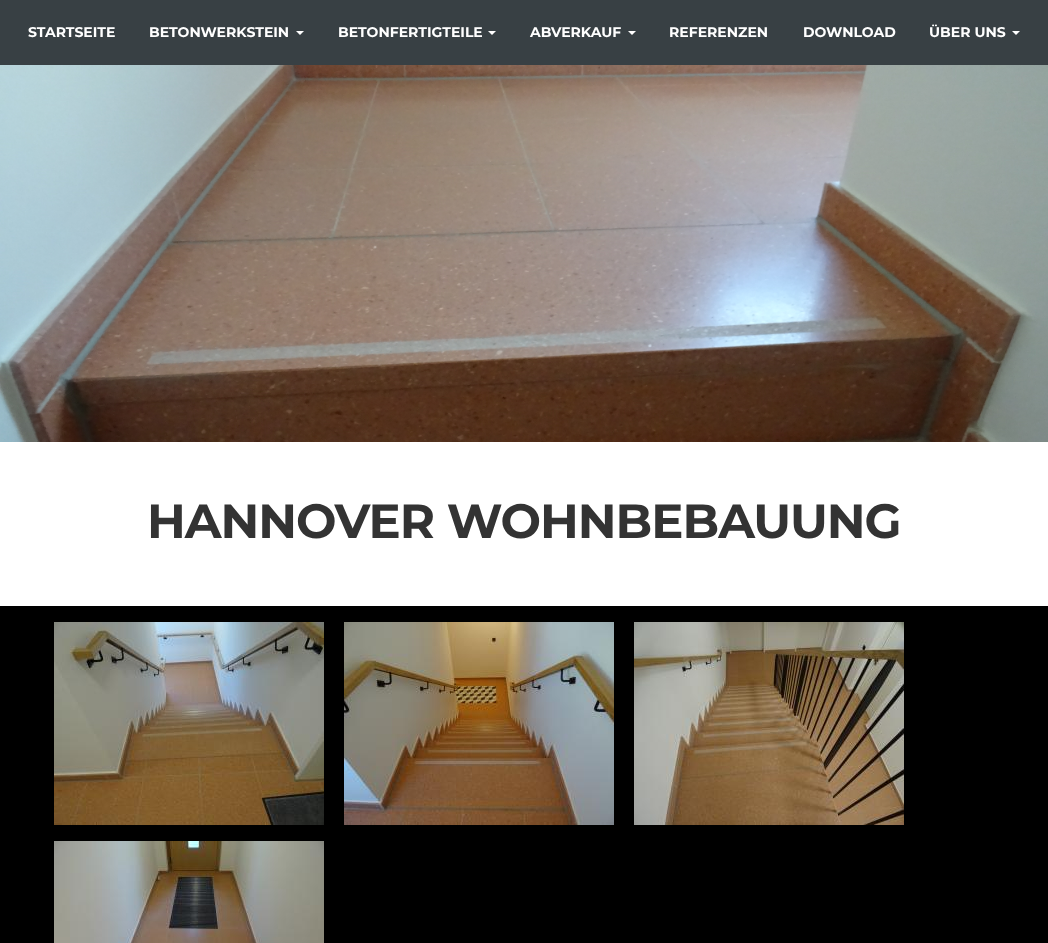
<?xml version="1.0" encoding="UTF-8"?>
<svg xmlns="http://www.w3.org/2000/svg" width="1048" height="943">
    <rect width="100%" height="100%" fill="#FFFFFF"/>
    <rect x="0" y="0" width="1048" height="65" fill="#384044"/>
    <text x="28" y="37" font-family="Montserrat" font-size="14" font-weight="700" fill="#FFFFFF">STARTSEITE</text>
    <text x="149" y="37" font-family="Montserrat" font-size="14" font-weight="700" fill="#FFFFFF">BETONWERKSTEIN</text>
    <path d="M 296 31 H 304 L 300 35 Z" fill="#FFFFFF"/>
    <text x="338" y="37" font-family="Montserrat" font-size="14" font-weight="700" fill="#FFFFFF">BETONFERTIGTEILE</text>
    <path d="M 488 31 H 496 L 492 35 Z" fill="#FFFFFF"/>
    <text x="530" y="37" font-family="Montserrat" font-size="14" font-weight="700" fill="#FFFFFF">ABVERKAUF</text>
    <path d="M 628 31 H 636 L 632 35 Z" fill="#FFFFFF"/>
    <text x="669" y="37" font-family="Montserrat" font-size="14" font-weight="700" fill="#FFFFFF">REFERENZEN</text>
    <text x="803" y="37" font-family="Montserrat" font-size="14" font-weight="700" fill="#FFFFFF">DOWNLOAD</text>
    <text x="929" y="37" font-family="Montserrat" font-size="14" font-weight="700" fill="#FFFFFF">ÜBER UNS</text>
    <path d="M 1012 31 H 1020 L 1016 35 Z" fill="#FFFFFF"/>
    <image x="0" y="65" width="1048" height="377" href="img_01.png"/>
    <text x="147" y="538" font-family="Montserrat" font-size="48" font-weight="700" letter-spacing="-1" fill="#333333">HANNOVER WOHNBEBAUUNG</text>
    <rect x="0" y="606" width="1048" height="337" fill="#000000"/>
    <image x="54" y="622" width="270" height="203" href="img_02.png"/>
    <image x="344" y="622" width="270" height="203" href="img_03.png"/>
    <image x="634" y="622" width="270" height="203" href="img_04.png"/>
    <image x="54" y="841" width="270" height="102" href="img_05.png"/>
</svg>
